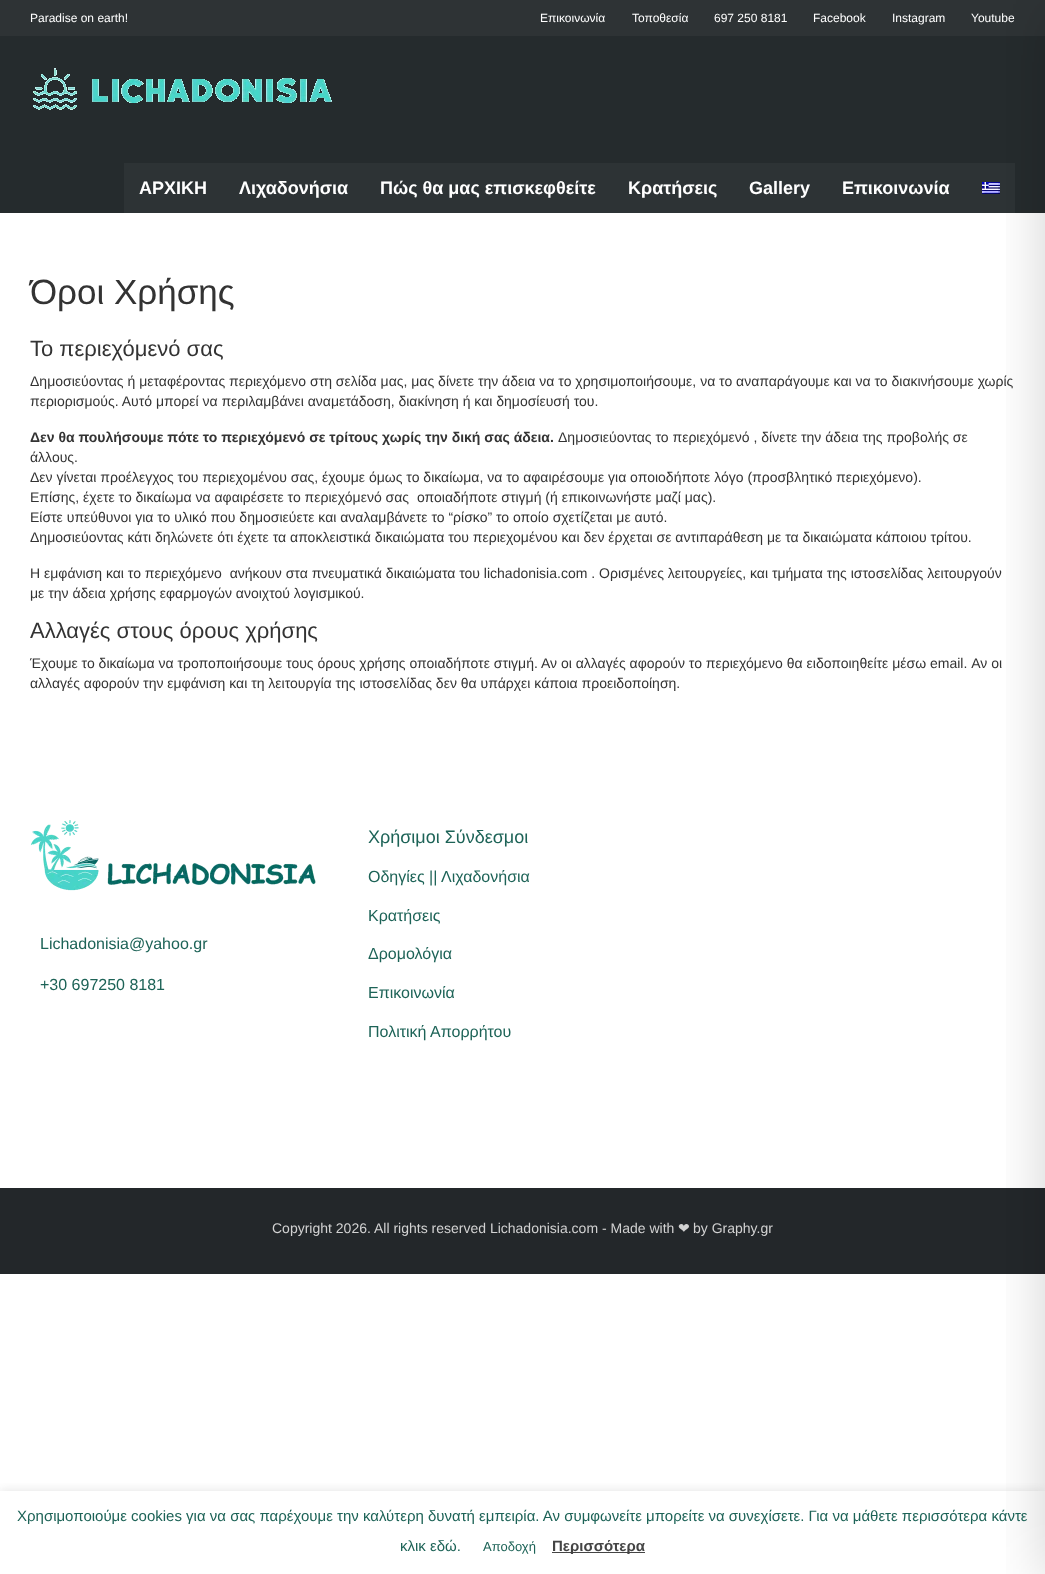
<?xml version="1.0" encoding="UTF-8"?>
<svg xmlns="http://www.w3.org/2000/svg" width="1045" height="1574">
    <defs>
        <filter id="blur1" x="-50%" y="-200%" width="200%" height="500%"><feGaussianBlur stdDeviation="30"/></filter>
        <clipPath id="clip1"><rect x="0" y="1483" width="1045" height="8"/></clipPath>
        <filter id="blur2" x="-50%" y="-200%" width="200%" height="500%"><feGaussianBlur stdDeviation="5"/></filter>
    </defs>
    <rect width="100%" height="100%" fill="#FFFFFF"/>
    <rect x="0" y="36" width="1045" height="177" fill="#252B2D"/>
    <rect x="0" y="0" width="1045" height="36" fill="#2E3335"/>
    <rect x="124" y="163" width="891" height="50" fill="#2D3335"/>
    <image x="982" y="182" width="18" height="12" href="img_02.png"/>
    <rect x="0" y="1188" width="1045" height="86" fill="#23272A"/>
    <rect x="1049" y="10" width="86" height="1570" fill="#000000" fill-opacity="0.2" filter="url(#blur1)"/>
    <text x="30" y="22" font-family="Liberation Sans" font-size="12" fill="#FFFFFF">Paradise on earth!</text>
    <text x="540" y="22" font-family="Liberation Sans" font-size="12" fill="#FFFFFF">Επικοινωνία</text>
    <text x="632" y="22" font-family="Liberation Sans" font-size="12" fill="#FFFFFF">Τοποθεσία</text>
    <text x="714" y="22" font-family="Liberation Sans" font-size="12" fill="#FFFFFF">697 250 8181</text>
    <text x="813" y="22" font-family="Liberation Sans" font-size="12" fill="#FFFFFF">Facebook</text>
    <text x="892" y="22" font-family="Liberation Sans" font-size="12" fill="#FFFFFF">Instagram</text>
    <text x="971" y="22" font-family="Liberation Sans" font-size="12" fill="#FFFFFF">Youtube</text>
    <image x="33" y="68" width="299" height="42" href="img_01.png"/>
    <text x="139" y="194" font-family="Liberation Sans" font-size="18" font-weight="700" fill="#FFFFFF">ΑΡΧΙΚΗ</text>
    <text x="239" y="194" font-family="Liberation Sans" font-size="18" font-weight="700" fill="#FFFFFF">Λιχαδονήσια</text>
    <text x="380" y="194" font-family="Liberation Sans" font-size="18" font-weight="700" fill="#FFFFFF">Πώς θα μας επισκεφθείτε</text>
    <text x="628" y="194" font-family="Liberation Sans" font-size="18" font-weight="700" fill="#FFFFFF">Κρατήσεις</text>
    <text x="749" y="194" font-family="Liberation Sans" font-size="18" font-weight="700" fill="#FFFFFF">Gallery</text>
    <text x="842" y="194" font-family="Liberation Sans" font-size="18" font-weight="700" fill="#FFFFFF">Επικοινωνία</text>
    <text x="30" y="304" font-family="Liberation Sans" font-size="35" fill="#333333">Όροι Χρήσης</text>
    <text x="30" y="356" font-family="Liberation Sans" font-size="22" fill="#333333">Το περιεχόμενό σας</text>
    <text font-family="Liberation Sans" font-size="14" fill="#333333">
        <tspan x="30" y="386">Δημοσιεύοντας ή μεταφέροντας περιεχόμενο στη σελίδα μας, μας δίνετε την άδεια να το χρησιμοποιήσουμε, να το αναπαράγουμε και να το διακινήσουμε χωρίς</tspan>
        <tspan x="30" y="406">περιορισμούς. Αυτό μπορεί να περιλαμβάνει αναμετάδοση, διακίνηση ή και δημοσίευσή του.</tspan>
    </text>
    <text x="30" y="442" font-family="Liberation Sans" font-size="14" font-weight="700" fill="#333333">Δεν θα πουλήσουμε πότε το περιεχόμενό σε τρίτους χωρίς την δική σας άδεια.</text>
    <text x="558" y="442" font-family="Liberation Sans" font-size="14" fill="#333333">Δημοσιεύοντας το περιεχόμενό , δίνετε την άδεια της προβολής σε</text>
    <text font-family="Liberation Sans" font-size="14" fill="#333333">
        <tspan x="30" y="462">άλλους.</tspan>
        <tspan x="30" y="482">Δεν γίνεται προέλεγχος του περιεχομένου σας, έχουμε όμως το δικαίωμα, να το αφαιρέσουμε για οποιοδήποτε λόγο (προσβλητικό περιεχόμενο).</tspan>
        <tspan x="30" y="502">Επίσης, έχετε το δικαίωμα να αφαιρέσετε το περιεχόμενό σας</tspan>
    </text>
    <text x="417" y="502" font-family="Liberation Sans" font-size="14" fill="#333333">οποιαδήποτε στιγμή (ή επικοινωνήστε μαζί μας).</text>
    <text font-family="Liberation Sans" font-size="14" fill="#333333">
        <tspan x="30" y="522">Είστε υπεύθυνοι για το υλικό που δημοσιεύετε και αναλαμβάνετε το “ρίσκο” το οποίο σχετίζεται με αυτό.</tspan>
        <tspan x="30" y="542">Δημοσιεύοντας κάτι δηλώνετε ότι έχετε τα αποκλειστικά δικαιώματα του περιεχομένου και δεν έρχεται σε αντιπαράθεση με τα δικαιώματα κάποιου τρίτου.</tspan>
    </text>
    <text font-family="Liberation Sans" font-size="14" fill="#333333" xml:space="preserve"><tspan x="30" y="578">Η εμφάνιση και το περιεχόμενο  ανήκουν στα πνευματικά δικαιώματα του lichadonisia.com . Ορισμένες λειτουργείες, και τμήματα της ιστοσελίδας λειτουργούν</tspan><tspan x="30" y="598">με την άδεια χρήσης εφαρμογών ανοιχτού λογισμικού.</tspan></text>
    <text x="30" y="638" font-family="Liberation Sans" font-size="22" fill="#333333">Αλλαγές στους όρους χρήσης</text>
    <text font-family="Liberation Sans" font-size="14" fill="#333333">
        <tspan x="30" y="668">Έχουμε το δικαίωμα να τροποποιήσουμε τους όρους χρήσης οποιαδήποτε στιγμή. Αν οι αλλαγές αφορούν το περιεχόμενο θα ειδοποιηθείτε μέσω email. Αν οι</tspan>
        <tspan x="30" y="688">αλλαγές αφορούν την εμφάνιση και τη λειτουργία της ιστοσελίδας δεν θα υπάρχει κάποια προειδοποίηση.</tspan>
    </text>
    <image x="30" y="820" width="286" height="71" href="img_03.png"/>
    <text x="40" y="949" font-family="Liberation Sans" font-size="16" fill="#1D6357">Lichadonisia@yahoo.gr</text>
    <text x="40" y="990" font-family="Liberation Sans" font-size="16" fill="#1D6357">+30 697250 8181</text>
    <text x="368" y="843" font-family="Liberation Sans" font-size="18" fill="#1D6357">Χρήσιμοι Σύνδεσμοι</text>
    <text x="368" y="882" font-family="Liberation Sans" font-size="16" fill="#1D6357">Οδηγίες || Λιχαδονήσια</text>
    <text x="368" y="921" font-family="Liberation Sans" font-size="16" fill="#1D6357">Κρατήσεις</text>
    <text x="368" y="959" font-family="Liberation Sans" font-size="16" fill="#1D6357">Δρομολόγια</text>
    <text x="368" y="998" font-family="Liberation Sans" font-size="16" fill="#1D6357">Επικοινωνία</text>
    <text x="368" y="1037" font-family="Liberation Sans" font-size="16" fill="#1D6357">Πολιτική Απορρήτου</text>
    <text x="272" y="1233" font-family="Liberation Sans" font-size="14" fill="#D2D2D2">Copyright 2026. All rights reserved Lichadonisia.com - Made with</text>
    <text x="678" y="1233" font-family="DejaVu Sans" font-size="14" fill="#D2D2D2">❤</text>
    <text x="693" y="1233" font-family="Liberation Sans" font-size="14" fill="#D2D2D2">by Graphy.gr</text>
    <g clip-path="url(#clip1)">
        <rect x="0" y="1490" width="1045" height="83" fill="#ACABAB" fill-opacity="0.3" filter="url(#blur2)"/>
    </g>
    <text x="17" y="1521" font-family="Liberation Sans" font-size="15" fill="#1D6357">Χρησιμοποιούμε cookies για να σας παρέχουμε την καλύτερη δυνατή εμπειρία. Αν συμφωνείτε μπορείτε να συνεχίσετε. Για να μάθετε περισσότερα κάντε</text>
    <text x="400" y="1551" font-family="Liberation Sans" font-size="15" fill="#1D6357">κλικ εδώ.</text>
    <text x="483" y="1551" font-family="Liberation Sans" font-size="13" fill="#1D6357">Αποδοχή</text>
    <rect x="552" y="1552" width="93" height="1" fill="#444444"/>
    <text x="552" y="1551" font-family="Liberation Sans" font-size="15" font-weight="700" fill="#444444">Περισσότερα</text>
</svg>
